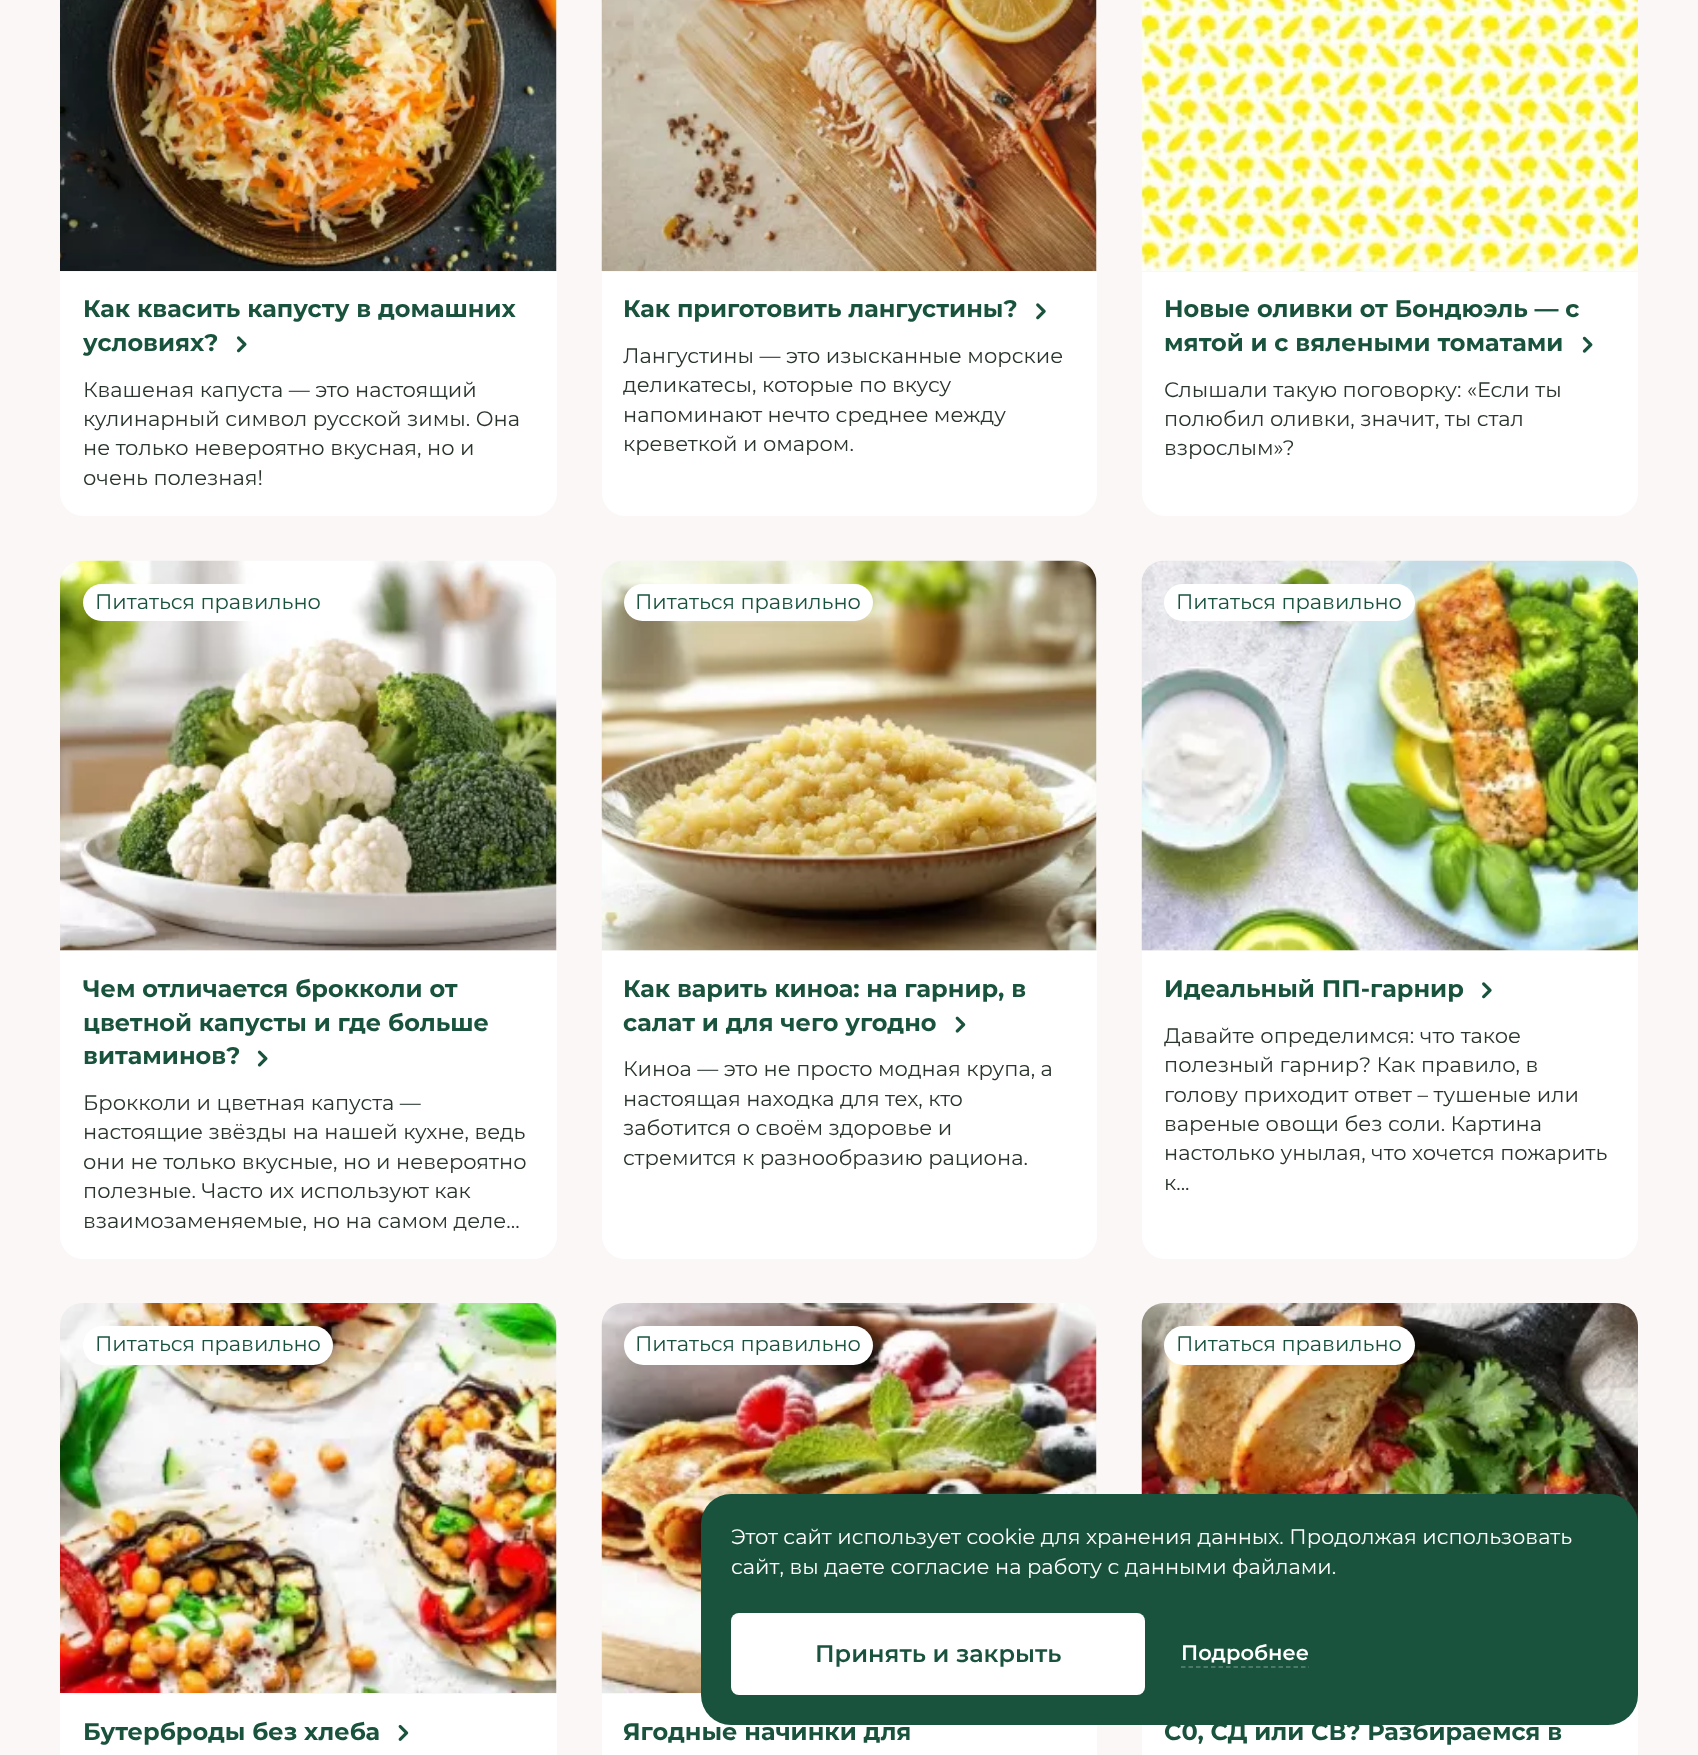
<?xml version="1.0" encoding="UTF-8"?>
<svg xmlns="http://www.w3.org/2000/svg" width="1698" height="1755">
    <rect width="100%" height="100%" fill="#FAF7F6"/>
    <image x="60" y="0" width="497" height="271" href="img_01.png"/>
    <path d="M 60 272 H 557 V 493 C 557 505.5 546.5 516 534 516 H 83 C 70.5 516 60 505.5 60 493 Z" fill="#FFFFFF"/>
    <text font-family="Montserrat" font-size="24" font-weight="700" fill="#19533D">
        <tspan x="83" y="317">Как квасить капусту в домашних</tspan>
        <tspan x="83" y="351">условиях?</tspan>
    </text>
    <image x="236" y="336" width="11" height="17" href="img_02.png"/>
    <text font-family="Montserrat" font-size="21" fill="#2A352D">
        <tspan x="83" y="397">Квашеная капуста — это настоящий</tspan>
        <tspan x="83" y="426">кулинарный символ русской зимы. Она</tspan>
        <tspan x="83" y="455">не только невероятно вкусная, но и</tspan>
        <tspan x="83" y="485">очень полезная!</tspan>
    </text>
    <image x="601" y="0" width="496" height="271" href="img_03.png"/>
    <path d="M 602 272 H 1097 V 493 C 1097 505.5 1086.5 516 1074 516 H 625 C 612.5 516 602 505.5 602 493 Z" fill="#FFFFFF"/>
    <text x="623" y="317" font-family="Montserrat" font-size="24" font-weight="700" fill="#19533D">Как приготовить лангустины?</text>
    <image x="1036" y="303" width="10" height="17" href="img_04.png"/>
    <text font-family="Montserrat" font-size="21" fill="#2A352D">
        <tspan x="623" y="363">Лангустины — это изысканные морские</tspan>
        <tspan x="623" y="392">деликатесы, которые по вкусу</tspan>
        <tspan x="623" y="422">напоминают нечто среднее между</tspan>
        <tspan x="623" y="451">креветкой и омаром.</tspan>
    </text>
    <image x="1141" y="0" width="497" height="271" href="img_05.png"/>
    <path d="M 1142 272 H 1638 V 493 C 1638 505.5 1627.5 516 1615 516 H 1165 C 1152.5 516 1142 505.5 1142 493 Z" fill="#FFFFFF"/>
    <text font-family="Montserrat" font-size="24" font-weight="700" fill="#19533D">
        <tspan x="1164" y="317">Новые оливки от Бондюэль — с</tspan>
        <tspan x="1164" y="351">мятой и с вялеными томатами</tspan>
    </text>
    <image x="1582" y="336" width="11" height="17" href="img_06.png"/>
    <text font-family="Montserrat" font-size="21" fill="#2A352D">
        <tspan x="1164" y="397">Слышали такую поговорку: «Если ты</tspan>
        <tspan x="1164" y="426">полюбил оливки, значит, ты стал</tspan>
        <tspan x="1164" y="455">взрослым»?</tspan>
    </text>
    <image x="60" y="560" width="497" height="391" href="img_07.png"/>
    <rect x="83" y="584" width="250" height="37" rx="18.5" fill="#FFFFFF"/>
    <text x="95" y="609" font-family="Montserrat" font-size="21" fill="#19533D">Питаться правильно</text>
    <path d="M 60 951 H 557 V 1236 C 557 1248.5 546.5 1259 534 1259 H 83 C 70.5 1259 60 1248.5 60 1236 Z" fill="#FFFFFF"/>
    <text font-family="Montserrat" font-size="24" font-weight="700" fill="#19533D">
        <tspan x="83" y="997">Чем отличается брокколи от</tspan>
        <tspan x="83" y="1031">цветной капусты и где больше</tspan>
        <tspan x="83" y="1064">витаминов?</tspan>
    </text>
    <image x="257" y="1050" width="11" height="17" href="img_08.png"/>
    <text font-family="Montserrat" font-size="21" fill="#2A352D">
        <tspan x="83" y="1110">Брокколи и цветная капуста —</tspan>
        <tspan x="83" y="1139">настоящие звёзды на нашей кухне, ведь</tspan>
        <tspan x="83" y="1169">они не только вкусные, но и невероятно</tspan>
        <tspan x="83" y="1198">полезные. Часто их используют как</tspan>
        <tspan x="83" y="1228">взаимозаменяемые, но на самом деле...</tspan>
    </text>
    <image x="601" y="560" width="496" height="391" href="img_09.png"/>
    <rect x="624" y="584" width="249" height="37" rx="18.5" fill="#FFFFFF"/>
    <text x="635" y="609" font-family="Montserrat" font-size="21" fill="#19533D">Питаться правильно</text>
    <path d="M 602 951 H 1097 V 1236 C 1097 1248.5 1086.5 1259 1074 1259 H 625 C 612.5 1259 602 1248.5 602 1236 Z" fill="#FFFFFF"/>
    <text font-family="Montserrat" font-size="24" font-weight="700" fill="#19533D">
        <tspan x="623" y="997">Как варить киноа: на гарнир, в</tspan>
        <tspan x="623" y="1031">салат и для чего угодно</tspan>
    </text>
    <image x="955" y="1016" width="11" height="17" href="img_10.png"/>
    <text font-family="Montserrat" font-size="21" fill="#2A352D">
        <tspan x="623" y="1076">Киноа — это не просто модная крупа, а</tspan>
        <tspan x="623" y="1106">настоящая находка для тех, кто</tspan>
        <tspan x="623" y="1135">заботится о своём здоровье и</tspan>
        <tspan x="623" y="1165">стремится к разнообразию рациона.</tspan>
    </text>
    <image x="1141" y="560" width="497" height="391" href="img_11.png"/>
    <rect x="1164" y="584" width="251" height="37" rx="18.5" fill="#FFFFFF"/>
    <text x="1176" y="609" font-family="Montserrat" font-size="21" fill="#19533D">Питаться правильно</text>
    <path d="M 1142 951 H 1638 V 1236 C 1638 1248.5 1627.5 1259 1615 1259 H 1165 C 1152.5 1259 1142 1248.5 1142 1236 Z" fill="#FFFFFF"/>
    <text x="1164" y="997" font-family="Montserrat" font-size="24" font-weight="700" fill="#19533D">Идеальный ПП-гарнир</text>
    <image x="1482" y="982" width="10" height="17" href="img_12.png"/>
    <text font-family="Montserrat" font-size="21" fill="#2A352D">
        <tspan x="1164" y="1043">Давайте определимся: что такое</tspan>
        <tspan x="1164" y="1072">полезный гарнир? Как правило, в</tspan>
        <tspan x="1164" y="1102">голову приходит ответ – тушеные или</tspan>
        <tspan x="1164" y="1131">вареные овощи без соли. Картина</tspan>
        <tspan x="1164" y="1160">настолько унылая, что хочется пожарить</tspan>
        <tspan x="1164" y="1190">к...</tspan>
    </text>
    <image x="60" y="1303" width="497" height="390" href="img_13.png"/>
    <rect x="83" y="1326" width="250" height="39" rx="19.5" fill="#FFFFFF"/>
    <text x="95" y="1351" font-family="Montserrat" font-size="21" fill="#19533D">Питаться правильно</text>
    <rect x="60" y="1694" width="497" height="61" fill="#FFFFFF"/>
    <text x="83" y="1740" font-family="Montserrat" font-size="24" font-weight="700" fill="#19533D">Бутерброды без хлеба</text>
    <image x="398" y="1724" width="11" height="17" href="img_14.png"/>
    <image x="601" y="1303" width="496" height="390" href="img_15.png"/>
    <rect x="624" y="1326" width="249" height="39" rx="19.5" fill="#FFFFFF"/>
    <text x="635" y="1351" font-family="Montserrat" font-size="21" fill="#19533D">Питаться правильно</text>
    <rect x="602" y="1694" width="495" height="61" fill="#FFFFFF"/>
    <text x="623" y="1740" font-family="Montserrat" font-size="24" font-weight="700" fill="#19533D">Ягодные начинки для</text>
    <image x="1141" y="1303" width="497" height="221" href="img_16.png"/>
    <rect x="1164" y="1326" width="251" height="39" rx="19.5" fill="#FFFFFF"/>
    <text x="1176" y="1351" font-family="Montserrat" font-size="21" fill="#19533D">Питаться правильно</text>
    <rect x="1142" y="1695" width="496" height="60" fill="#FFFFFF"/>
    <text x="1164" y="1740" font-family="Montserrat" font-size="24" font-weight="700" fill="#19533D">С0, СД или СВ? Разбираемся в</text>
    <rect x="701" y="1494" width="937" height="231" rx="30" fill="#19533D"/>
    <text font-family="Montserrat" font-size="21" fill="#FFFFFF">
        <tspan x="731" y="1544">Этот сайт использует cookie для хранения данных. Продолжая использовать</tspan>
        <tspan x="731" y="1574">сайт, вы даете согласие на работу с данными файлами.</tspan>
    </text>
    <rect x="731" y="1613" width="414" height="82" rx="8" fill="#FFFFFF"/>
    <text x="815" y="1662" font-family="Montserrat" font-size="24" font-weight="600" fill="#19533D">Принять и закрыть</text>
    <text x="1181" y="1660" font-family="Montserrat" font-size="21" font-weight="600" fill="#FFFFFF">Подробнее</text>
    <path d="M 1181 1667 H 1309" fill="none" stroke="#5E8777" stroke-width="1.5" stroke-dasharray="4.5 3"/>
</svg>
